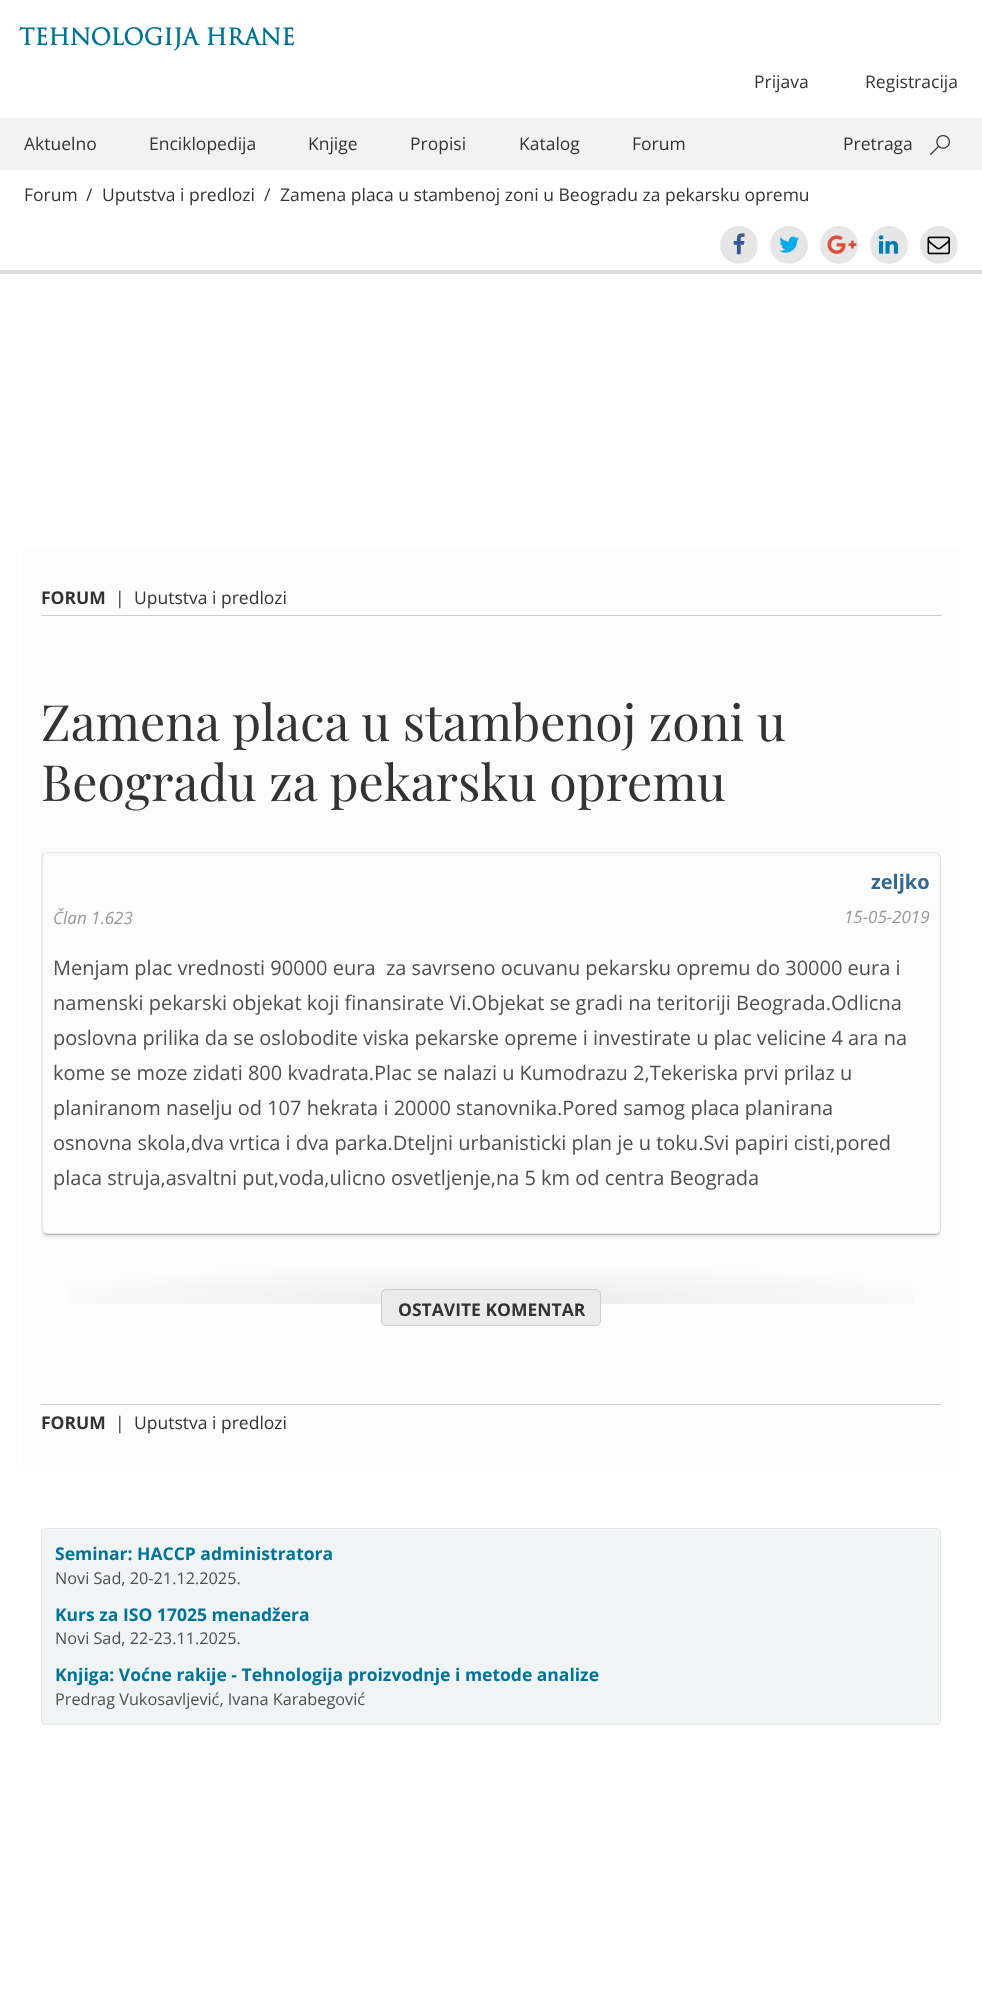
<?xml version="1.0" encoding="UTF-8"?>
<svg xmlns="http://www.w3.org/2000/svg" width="982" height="2013">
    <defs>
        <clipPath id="clip1"><rect x="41" y="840" width="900" height="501"/></clipPath>
        <clipPath id="clip2"><path d="M 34 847 H 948 V 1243 H 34 Z M 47 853 H 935 C 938.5 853 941 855.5 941 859 V 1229 C 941 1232.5 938.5 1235 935 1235 H 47 C 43.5 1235 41 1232.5 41 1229 V 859 C 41 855.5 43.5 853 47 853 Z" clip-rule="evenodd"/></clipPath>
        <filter id="blur1" x="-50%" y="-200%" width="200%" height="500%"><feGaussianBlur stdDeviation="2"/></filter>
        <clipPath id="clip3"><rect x="41" y="840" width="900" height="501"/></clipPath>
        <clipPath id="clip4"><rect x="43" y="854" width="897" height="380" rx="5"/></clipPath>
        <radialGradient id="g1" gradientUnits="userSpaceOnUse" cx="0" cy="0" r="1" gradientTransform="matrix(495 0 0 41 491 1304)"><stop offset="0" stop-color="#EBEBEB"/><stop offset="1" stop-color="#FCFCFC"/></radialGradient>
    </defs>
    <rect width="100%" height="100%" fill="#FFFFFF"/>
    <rect x="0" y="270" width="982" height="4" fill="#DDDDDD"/>
    <text x="19" y="45" font-family="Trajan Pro" font-size="22.5" font-weight="700" fill="#007398">TEHNOLOGIJA HRANE</text>
    <text x="754" y="88" font-family="Open Sans" font-size="17.5" fill="#333333">Prijava</text>
    <text x="865" y="88" font-family="Open Sans" font-size="17.5" fill="#333333">Registracija</text>
    <rect x="0" y="118" width="982" height="52" fill="#F2F2F2"/>
    <text x="24" y="150" font-family="Open Sans" font-size="17.5" fill="#333333">Aktuelno</text>
    <text x="149" y="150" font-family="Open Sans" font-size="17.5" fill="#333333">Enciklopedija</text>
    <text x="308" y="150" font-family="Open Sans" font-size="17.5" fill="#333333">Knjige</text>
    <text x="410" y="150" font-family="Open Sans" font-size="17.5" fill="#333333">Propisi</text>
    <text x="519" y="150" font-family="Open Sans" font-size="17.5" fill="#333333">Katalog</text>
    <text x="632" y="150" font-family="Open Sans" font-size="17.5" fill="#333333">Forum</text>
    <text x="843" y="150" font-family="Open Sans" font-size="17.5" fill="#333333">Pretraga</text>
    <image x="930" y="135" width="20" height="20" href="img_01.png"/>
    <text x="24" y="201" font-family="Open Sans" font-size="17.5" fill="#333333">Forum</text>
    <text x="86" y="201" font-family="Open Sans" font-size="17.5" fill="#333333">/</text>
    <text x="102" y="201" font-family="Open Sans" font-size="17.5" fill="#333333">Uputstva i predlozi</text>
    <text x="264" y="201" font-family="Open Sans" font-size="17.5" fill="#333333">/</text>
    <text x="280" y="201" font-family="Open Sans" font-size="17.5" fill="#333333">Zamena placa u stambenoj zoni u Beogradu za pekarsku opremu</text>
    <circle cx="739" cy="245" r="19" fill="#E6E6E6"/>
    <image x="733" y="233" width="12" height="22" href="img_02.png"/>
    <circle cx="789" cy="245" r="19" fill="#E6E6E6"/>
    <image x="779" y="236" width="20" height="17" href="img_03.png"/>
    <circle cx="839" cy="245" r="19" fill="#E6E6E6"/>
    <image x="827" y="235" width="30" height="19" href="img_04.png"/>
    <circle cx="889" cy="245" r="19" fill="#E6E6E6"/>
    <image x="878" y="235" width="21" height="19" href="img_05.png"/>
    <circle cx="939" cy="245" r="19" fill="#E6E6E6"/>
    <image x="927" y="236" width="23" height="19" href="img_06.png"/>
    <rect x="23" y="549" width="937" height="922" fill="#FCFCFC"/>
    <text x="41" y="604" font-family="Open Sans" font-size="17.5" font-weight="700" fill="#333333">FORUM</text>
    <text x="115" y="604" font-family="Open Sans" font-size="17.5" fill="#333333">|</text>
    <text x="134" y="604" font-family="Open Sans" font-size="17.5" fill="#333333">Uputstva i predlozi</text>
    <rect x="41" y="615" width="900" height="1" fill="#CCCCCC"/>
    <text font-family="Playfair Display" font-size="50" fill="#333333">
        <tspan x="41" y="741">Zamena placa u stambenoj zoni u</tspan>
        <tspan x="41" y="801">Beogradu za pekarsku opremu</tspan>
    </text>
    <g clip-path="url(#clip1)">
        <g clip-path="url(#clip2)">
            <rect x="41" y="854" width="900" height="382" rx="6" fill="#000000" fill-opacity="0.15" filter="url(#blur1)"/>
        </g>
    </g>
    <path d="M 43.5 855 C 44.5 853.5 46 853 47.5 853 H 935 C 936.5 853 938 853.5 939 855" fill="none" stroke="#EEEEEE" stroke-width="1.2"/>
    <g clip-path="url(#clip3)">
        <path d="M 939 855 C 940 856 940.5 857.5 940.5 859 V 1229 C 940.5 1230 940 1231.5 939 1232.5" fill="none" stroke="#DDDDDD" stroke-width="1.2"/>
    </g>
    <path d="M 939 1232.5 C 938 1234 936.5 1234.5 935 1234.5 H 47.5 C 46 1234.5 44.5 1234 43.5 1232.5" fill="none" stroke="#BBBBBB" stroke-width="1.2"/>
    <path d="M 43.5 1232.5 C 42.5 1231.5 42 1230 42 1229 V 859 C 42 857.5 42.5 856 43.5 855" fill="none" stroke="#DDDDDD" stroke-width="1.2"/>
    <g clip-path="url(#clip4)">
        <rect x="43" y="1233" width="897" height="1" fill="#E8E8E8"/>
    </g>
    <text x="871" y="889" font-family="Open Sans" font-size="20" font-weight="700" fill="#326891">zeljko</text>
    <text x="53" y="924" font-family="Open Sans" font-size="17" font-style="italic" fill="#999999">Član 1.623</text>
    <text x="844" y="923" font-family="Open Sans" font-size="17" font-style="italic" fill="#999999">15-05-2019</text>
    <text font-family="Open Sans" font-size="20" fill="#4F4F4F" xml:space="preserve"><tspan x="53" y="975">Menjam plac vrednosti 90000 eura  za savrseno ocuvanu pekarsku opremu do 30000 eura i</tspan><tspan x="53" y="1010">namenski pekarski objekat koji finansirate Vi.Objekat se gradi na teritoriji Beograda.Odlicna</tspan><tspan x="53" y="1045">poslovna prilika da se oslobodite viska pekarske opreme i investirate u plac velicine 4 ara na</tspan><tspan x="53" y="1080">kome se moze zidati 800 kvadrata.Plac se nalazi u Kumodrazu 2,Tekeriska prvi prilaz u</tspan><tspan x="53" y="1115">planiranom naselju od 107 hekrata i 20000 stanovnika.Pored samog placa planirana</tspan><tspan x="53" y="1150">osnovna skola,dva vrtica i dva parka.Dteljni urbanisticki plan je u toku.Svi papiri cisti,pored</tspan><tspan x="53" y="1185">placa struja,asvaltni put,voda,ulicno osvetljenje,na 5 km od centra Beograda</tspan></text>
    <rect x="68" y="1269" width="846" height="35" fill="url(#g1)"/>
    <rect x="381.5" y="1289.5" width="219" height="36" rx="4.5" fill="#EBEBEB" stroke="#CCCCCC"/>
    <text x="398" y="1316" font-family="Open Sans" font-size="17.5" font-weight="700" fill="#333333">OSTAVITE KOMENTAR</text>
    <rect x="41" y="1404" width="900" height="1" fill="#CCCCCC"/>
    <text x="41" y="1429" font-family="Open Sans" font-size="17.5" font-weight="700" fill="#333333">FORUM</text>
    <text x="115" y="1429" font-family="Open Sans" font-size="17.5" fill="#333333">|</text>
    <text x="134" y="1429" font-family="Open Sans" font-size="17.5" fill="#333333">Uputstva i predlozi</text>
    <rect x="41.5" y="1528.5" width="899" height="196" rx="3.5" fill="#F0F4F5" stroke="#E6E6E6"/>
    <text x="55" y="1560" font-family="Open Sans" font-size="17.5" font-weight="700" fill="#007398">Seminar: HACCP administratora</text>
    <text x="55" y="1584" font-family="Open Sans" font-size="16.25" fill="#4F4F4F">Novi Sad, 20-21.12.2025.</text>
    <text x="55" y="1621" font-family="Open Sans" font-size="17.5" font-weight="700" fill="#007398">Kurs za ISO 17025 menadžera</text>
    <text x="55" y="1644" font-family="Open Sans" font-size="16.25" fill="#4F4F4F">Novi Sad, 22-23.11.2025.</text>
    <text x="55" y="1681" font-family="Open Sans" font-size="17.5" font-weight="700" fill="#007398">Knjiga: Voćne rakije - Tehnologija proizvodnje i metode analize</text>
    <text x="55" y="1705" font-family="Open Sans" font-size="16.25" fill="#4F4F4F">Predrag Vukosavljević, Ivana Karabegović</text>
</svg>
